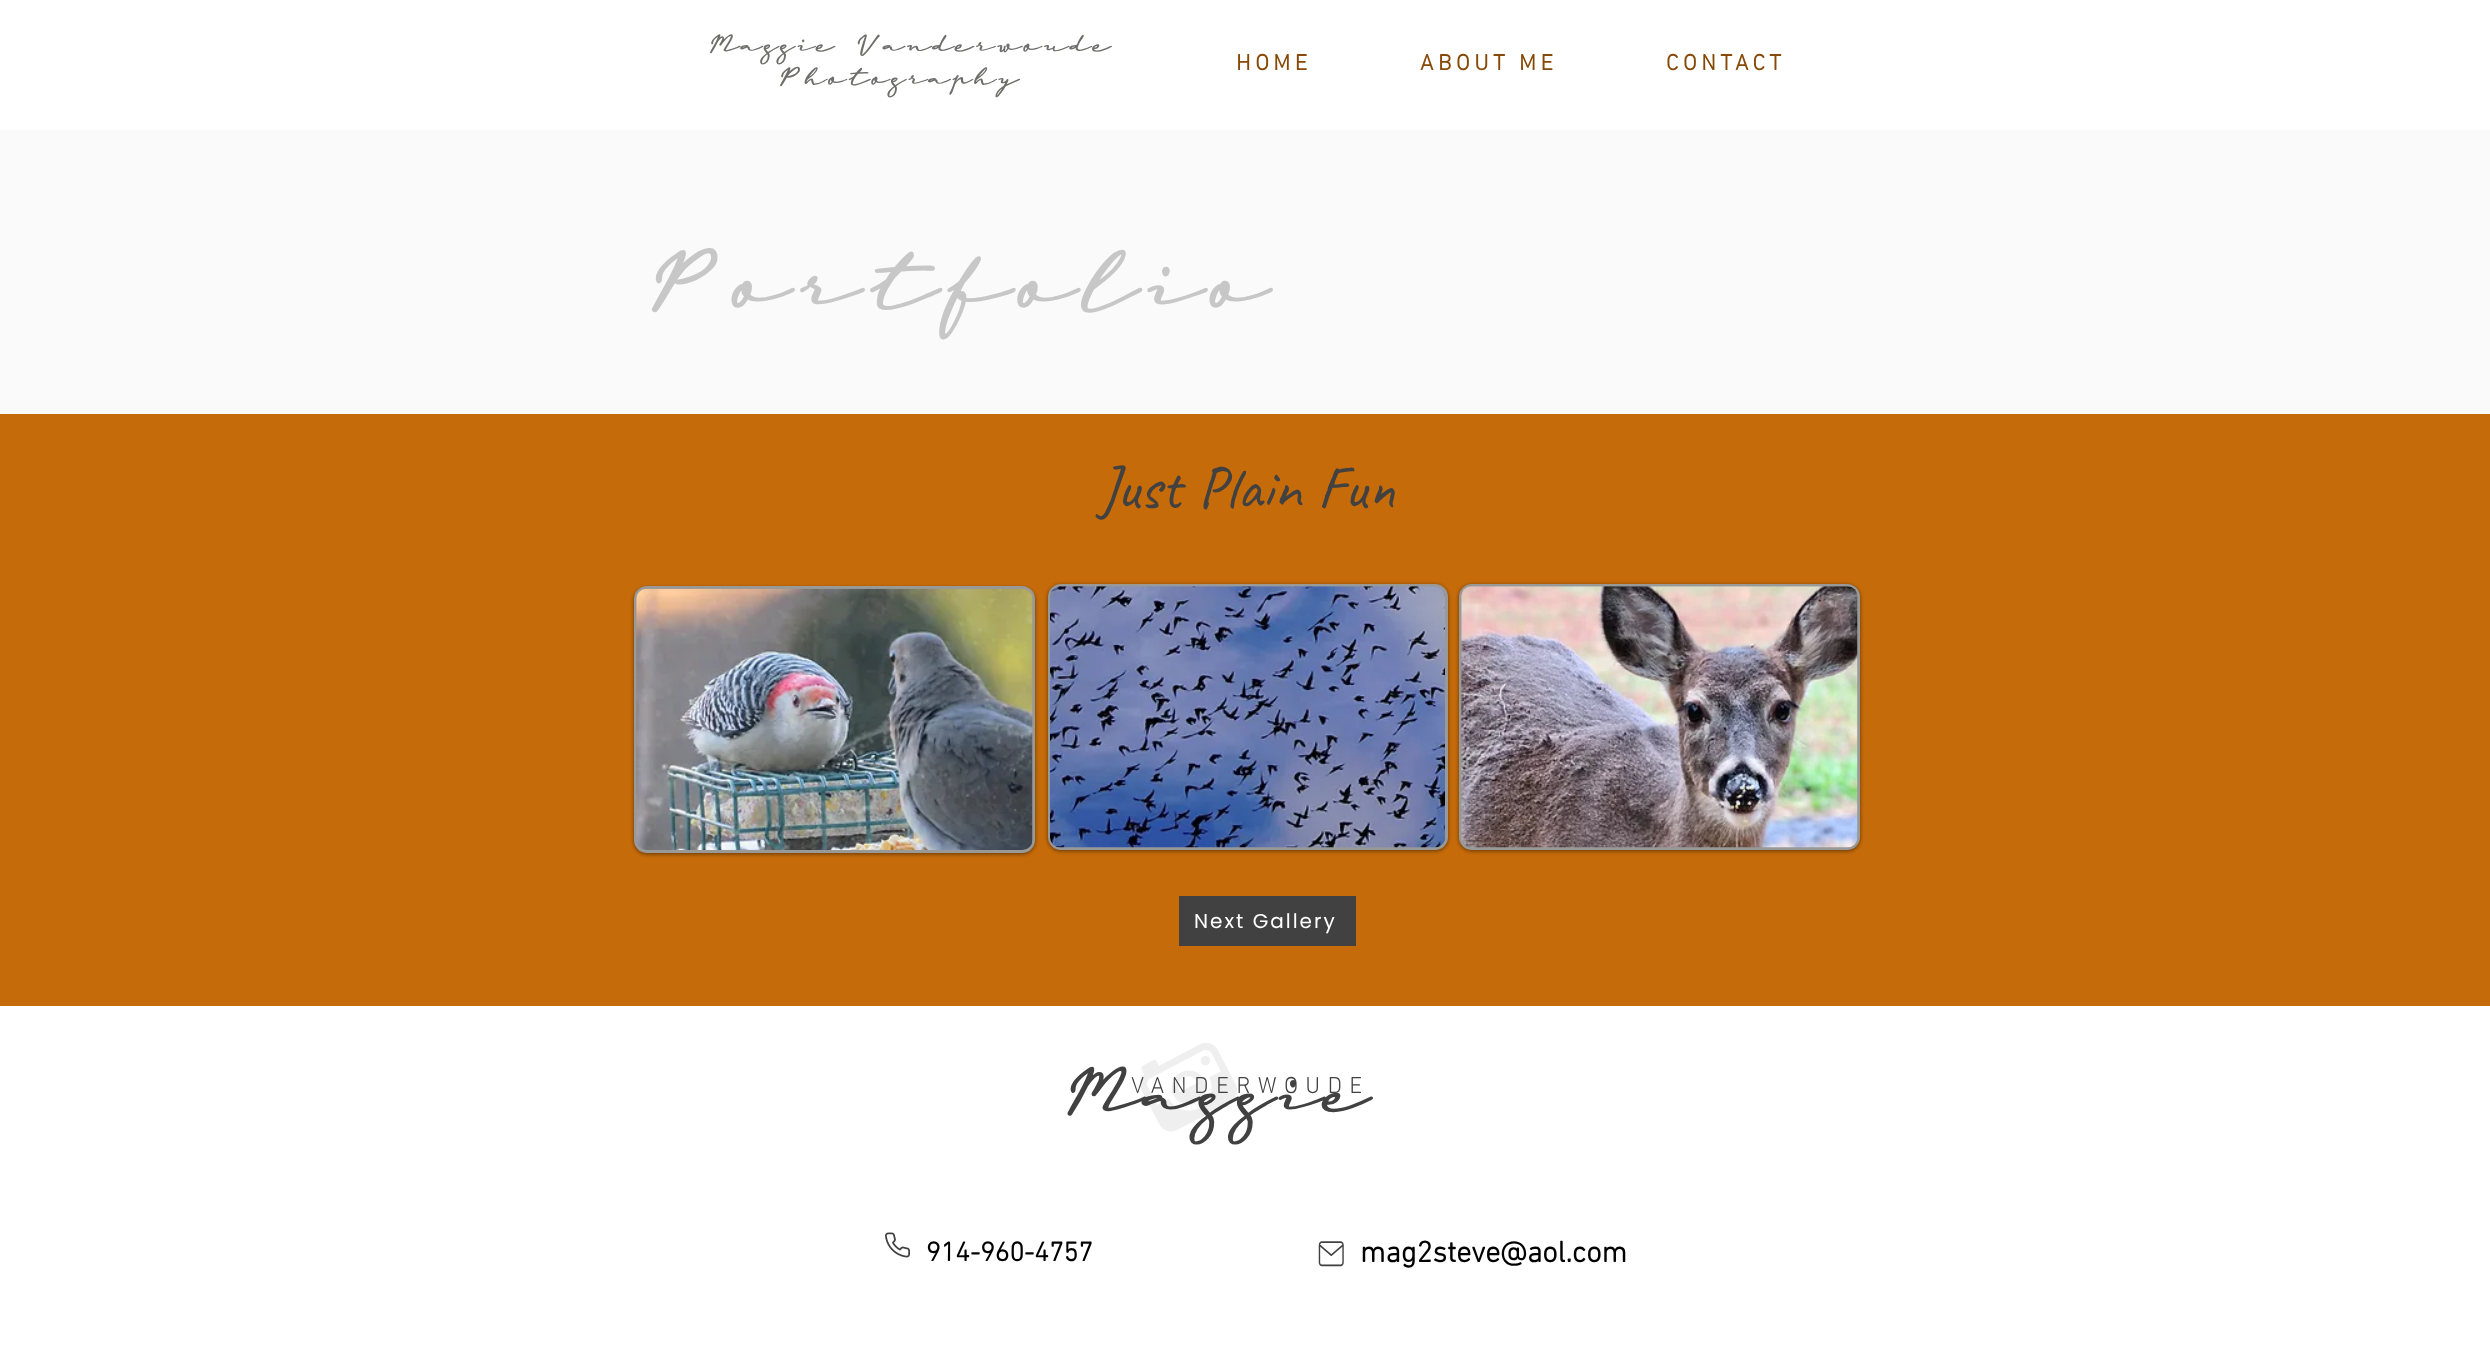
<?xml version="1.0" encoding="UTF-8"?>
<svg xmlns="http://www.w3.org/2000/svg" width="2490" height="1369">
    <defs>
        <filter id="blur1" x="-50%" y="-200%" width="200%" height="500%"><feGaussianBlur stdDeviation="2"/></filter>
    </defs>
    <rect width="100%" height="100%" fill="#FFFFFF"/>
    <text x="711" y="51" font-family="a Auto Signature" font-size="30" font-weight="700" letter-spacing="3" fill="#6E6E6B">Maggie Vanderwoude</text>
    <text x="781" y="84" font-family="a Auto Signature" font-size="30" font-weight="700" letter-spacing="3" fill="#6E6E6B">Photography</text>
    <text x="1236" y="70" font-family="'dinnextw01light'" font-size="22.5" font-weight="700" letter-spacing="4.5" fill="#874907">HOME</text>
    <text x="1420" y="70" font-family="'dinnextw01light'" font-size="22.5" font-weight="700" letter-spacing="4.5" fill="#874907">ABOUT ME</text>
    <text x="1666" y="70" font-family="'dinnextw01light'" font-size="22.5" font-weight="700" letter-spacing="4.5" fill="#874907">CONTACT</text>
    <rect x="0" y="130" width="2490" height="284" fill="#FAFAFA"/>
    <text x="655" y="305" font-family="a Auto Signature" font-size="98.75" font-weight="700" letter-spacing="9.9" fill="#C7C7C7">Portfolio</text>
    <rect x="0" y="414" width="2490" height="592" fill="#C66B0A"/>
    <text x="1098" y="508" font-family="Caveat" font-size="62.5" fill="#414141">Just Plain Fun</text>
    <rect x="634" y="588" width="401" height="266" rx="13" fill="#000000" fill-opacity="0.5" filter="url(#blur1)"/>
    <rect x="635.5" y="587.5" width="398" height="264" rx="11.5" fill="#999997" stroke="#999997" stroke-width="3"/>
    <image x="636" y="588" width="397" height="262" href="img_01.png"/>
    <rect x="1048" y="585" width="400" height="266" rx="13" fill="#000000" fill-opacity="0.5" filter="url(#blur1)"/>
    <rect x="1049.5" y="585.5" width="397" height="263" rx="11.5" fill="none" stroke="#999997" stroke-width="3"/>
    <image x="1050" y="586" width="395" height="262" href="img_02.png"/>
    <rect x="1459" y="585" width="401" height="266" rx="13" fill="#000000" fill-opacity="0.5" filter="url(#blur1)"/>
    <rect x="1460.5" y="585.5" width="398" height="263" rx="11.5" fill="none" stroke="#999997" stroke-width="3"/>
    <image x="1461" y="586" width="397" height="262" href="img_03.png"/>
    <rect x="1179" y="896" width="177" height="50" fill="#414141"/>
    <text x="1194" y="928" font-family="Poppins" font-size="20" letter-spacing="2" fill="#FFFFFF">Next Gallery</text>
    <text x="1070" y="1110" font-family="a Auto Signature" font-size="77.5" font-weight="700" letter-spacing="4" fill="#414141">Maggie</text>
    <image x="1140" y="1043" width="97" height="89" href="img_04.png"/>
    <text x="1131" y="1093" font-family="'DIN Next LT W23'" font-size="22.5" font-weight="700" letter-spacing="7.9" fill="#414141">VANDERWOUDE</text>
    <image x="885" y="1232" width="25" height="26" href="img_05.png"/>
    <text x="926" y="1261" font-family="'dinnextw01light'" font-size="27.5" font-weight="700" fill="#000000">914-960-4757</text>
    <image x="1318" y="1241" width="26" height="26" href="img_06.png"/>
    <text x="1360" y="1262" font-family="'dinnextw01light'" font-size="30" font-weight="700" fill="#000000">mag2steve@aol.com</text>
</svg>
